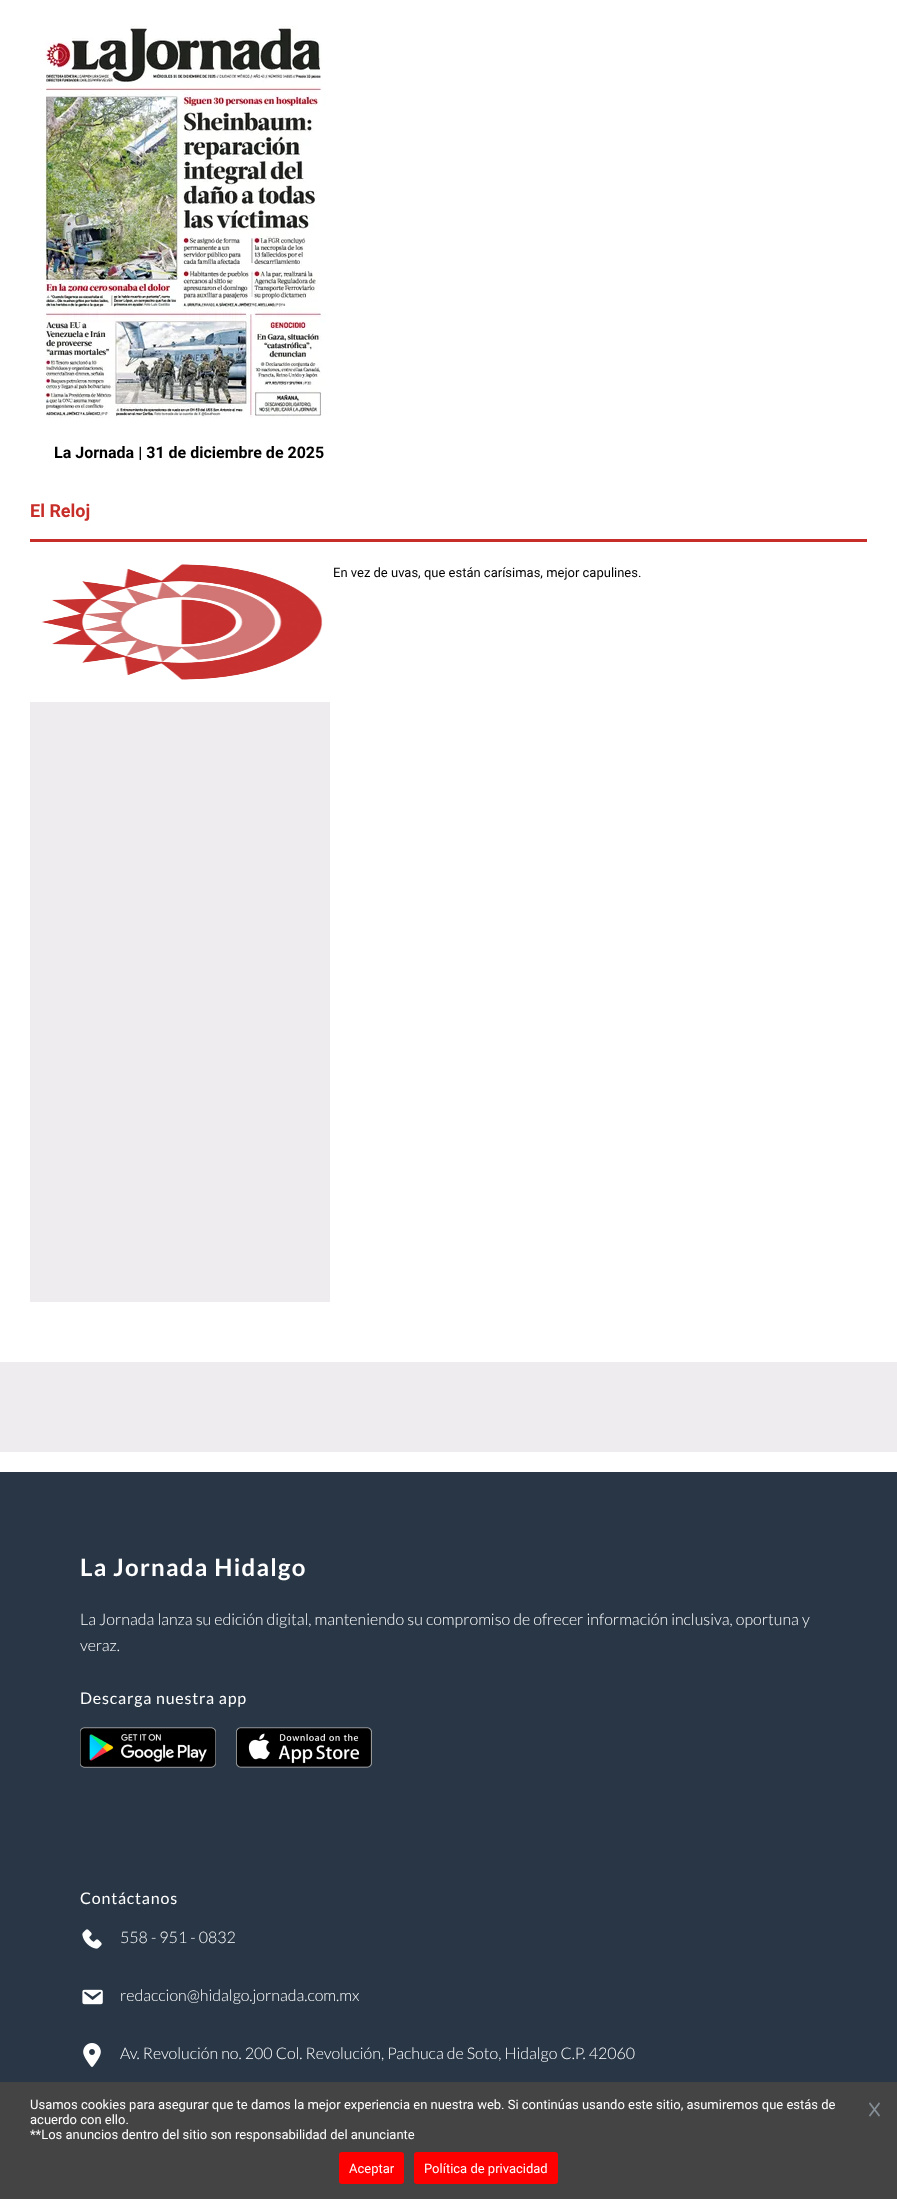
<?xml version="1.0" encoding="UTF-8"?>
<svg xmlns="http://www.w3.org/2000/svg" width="897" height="2199">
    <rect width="100%" height="100%" fill="#FFFFFF"/>
    <image x="43" y="26" width="283" height="392" href="img_01.png"/>
    <text x="54" y="458" font-family="Roboto" font-size="16" font-weight="700" fill="#000000">La Jornada | 31 de diciembre de 2025</text>
    <rect x="30" y="539" width="837" height="3" fill="#C82E29"/>
    <text x="30" y="517" font-family="Roboto" font-size="18" font-weight="700" fill="#C82E29">El Reloj</text>
    <image x="41" y="564" width="282" height="116" href="img_02.png"/>
    <text x="333" y="577" font-family="Roboto" font-size="13" fill="#000000">En vez de uvas, que están carísimas, mejor capulines.</text>
    <rect x="30" y="702" width="300" height="600" fill="#EEECEE"/>
    <rect x="0" y="1362" width="897" height="90" fill="#EEECEE"/>
    <rect x="0" y="1472" width="897" height="610" fill="#283646"/>
    <text x="80" y="1576" font-family="Lato" font-size="24" font-weight="700" letter-spacing="1.25" fill="#FFFFFF">La Jornada Hidalgo</text>
    <text font-family="Lato" font-size="16" font-weight="300" fill="#FFFFFF">
        <tspan x="80" y="1625">La Jornada lanza su edición digital, manteniendo su compromiso de ofrecer información inclusiva, oportuna y</tspan>
        <tspan x="80" y="1651">veraz.</tspan>
    </text>
    <text x="80" y="1704" font-family="Lato" font-size="16" letter-spacing="0.8" fill="#FFFFFF">Descarga nuestra app</text>
    <image x="80" y="1727" width="136" height="41" href="img_03.png"/>
    <image x="236" y="1727" width="136" height="41" href="img_04.png"/>
    <text x="80" y="1904" font-family="Lato" font-size="16" letter-spacing="0.8" fill="#FFFFFF">Contáctanos</text>
    <image x="82" y="1929" width="20" height="20" href="img_05.png"/>
    <text x="120" y="1943" font-family="Lato" font-size="16" font-weight="300" fill="#FFFFFF">558 - 951 - 0832</text>
    <image x="82" y="1989" width="21" height="16" href="img_06.png"/>
    <text x="120" y="2001" font-family="Lato" font-size="16" font-weight="300" fill="#FFFFFF">redaccion@hidalgo.jornada.com.mx</text>
    <image x="83" y="2043" width="18" height="24" href="img_07.png"/>
    <text x="120" y="2059" font-family="Lato" font-size="16" font-weight="300" fill="#FFFFFF">Av. Revolución no. 200 Col. Revolución, Pachuca de Soto, Hidalgo C.P. 42060</text>
    <rect x="0" y="2082" width="897" height="117" fill="#444444"/>
    <text font-family="Roboto" font-size="13" fill="#FFFFFF">
        <tspan x="30" y="2109">Usamos cookies para asegurar que te damos la mejor experiencia en nuestra web. Si continúas usando este sitio, asumiremos que estás de</tspan>
        <tspan x="30" y="2124">acuerdo con ello.</tspan>
        <tspan x="30" y="2139">**Los anuncios dentro del sitio son responsabilidad del anunciante</tspan>
    </text>
    <image x="869" y="2102" width="11" height="15" href="img_08.png"/>
    <rect x="339" y="2152" width="65" height="32" rx="3" fill="#FF0000"/>
    <text x="349" y="2173" font-family="Roboto" font-size="13" fill="#FFFFFF">Aceptar</text>
    <rect x="414" y="2152" width="144" height="32" rx="3" fill="#FF0000"/>
    <text x="424" y="2173" font-family="Roboto" font-size="13" fill="#FFFFFF">Política de privacidad</text>
</svg>
